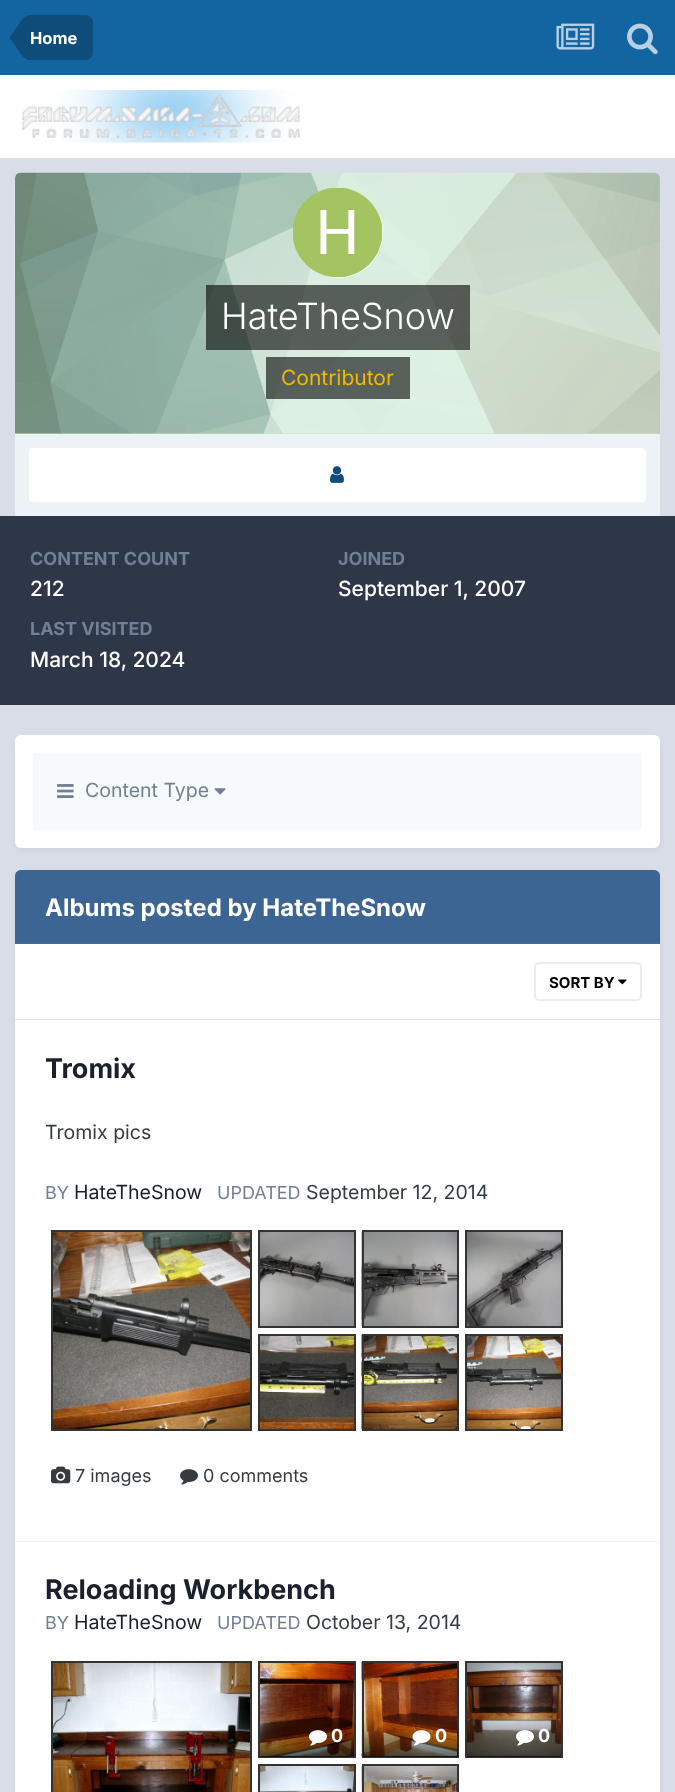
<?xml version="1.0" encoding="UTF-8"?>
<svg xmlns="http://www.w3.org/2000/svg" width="675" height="1792">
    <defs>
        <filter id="blur1" x="-50%" y="-200%" width="200%" height="500%"><feGaussianBlur stdDeviation="3"/></filter>
        <linearGradient id="g1" gradientUnits="userSpaceOnUse" x1="307" y1="1718" x2="307" y2="1757"><stop offset="0" stop-color="#000000" stop-opacity="0"/><stop offset="1" stop-color="#000000" stop-opacity="0.6"/></linearGradient>
        <linearGradient id="g2" gradientUnits="userSpaceOnUse" x1="410" y1="1718" x2="410" y2="1757"><stop offset="0" stop-color="#000000" stop-opacity="0"/><stop offset="1" stop-color="#000000" stop-opacity="0.6"/></linearGradient>
        <linearGradient id="g3" gradientUnits="userSpaceOnUse" x1="514" y1="1718" x2="514" y2="1757"><stop offset="0" stop-color="#000000" stop-opacity="0"/><stop offset="1" stop-color="#000000" stop-opacity="0.6"/></linearGradient>
    </defs>
    <rect width="100%" height="100%" fill="#D9DDE8"/>
    <rect x="0" y="0" width="675" height="75" fill="#1265A1"/>
    <path d="M 30 15 H 85 C 89.5 15 93 18.5 93 23 V 52 C 93 56.5 89.5 60 85 60 H 30 Z" fill="#0E4C79"/>
    <path d="M 10.5 39 L 10 37.5 H 30 V 60 C 27 60 23.5 58 21 54 Z" fill="#0E4C79"/>
    <path d="M 30 15 V 37.5 H 10 L 10.5 36 L 21 21 C 23.5 17 27 15 30 15 Z" fill="#000000" fill-opacity="0.25"/>
    <text x="30" y="44" font-family="Inter" font-size="16.5" font-weight="700" fill="#FFFFFF">Home</text>
    <image x="556" y="23" width="39" height="27" href="img_01.png"/>
    <image x="627" y="23" width="31" height="32" href="img_02.png"/>
    <rect x="0" y="75" width="675" height="83" fill="#FFFFFF"/>
    <image x="22" y="90" width="278" height="53" href="img_03.png"/>
    <path d="M 21 173 H 654 C 657.5 173 660 175.5 660 179 V 434 H 15 V 179 C 15 175.5 17.5 173 21 173 Z" fill="#99FFB8"/>
    <image x="15" y="172" width="645" height="262" href="img_04.png"/>
    <circle cx="338" cy="233" r="45" fill="#FFFFFF"/>
    <image x="293" y="188" width="90" height="90" href="img_05.png"/>
    <rect x="206" y="285" width="264" height="65" fill="#000000" fill-opacity="0.6"/>
    <text x="221" y="329" font-family="Inter" font-size="36" font-weight="300" fill="#FFFFFF">HateTheSnow</text>
    <rect x="266" y="357" width="144" height="42" fill="#000000" fill-opacity="0.6"/>
    <text x="281" y="385" font-family="Inter" font-size="21" fill="#F4B800">Contributor</text>
    <rect x="15" y="434" width="645" height="82" fill="#EDF2F7"/>
    <rect x="27" y="446" width="621" height="58" rx="6" fill="#FFFFFF"/>
    <rect x="28" y="447" width="619" height="56" rx="5" fill="none" stroke="#0E4C79" stroke-opacity="0.07" stroke-width="2"/>
    <image x="330" y="466" width="14" height="17" href="img_06.png"/>
    <rect x="0" y="516" width="675" height="189" fill="#2D3748"/>
    <text x="30" y="565" font-family="Inter" font-size="18" font-weight="700" fill="#718096">CONTENT COUNT</text>
    <text x="30" y="596" font-family="Inter" font-size="21" font-weight="500" fill="#FFFFFF">212</text>
    <text x="338" y="565" font-family="Inter" font-size="18" font-weight="700" fill="#718096">JOINED</text>
    <text x="338" y="596" font-family="Inter" font-size="21" font-weight="500" fill="#FFFFFF">September 1, 2007</text>
    <text x="30" y="635" font-family="Inter" font-size="18" font-weight="700" fill="#718096">LAST VISITED</text>
    <text x="30" y="667" font-family="Inter" font-size="21" font-weight="500" fill="#FFFFFF">March 18, 2024</text>
    <rect x="17" y="740" width="642" height="109" rx="5" fill="#2D3748" fill-opacity="0.1" filter="url(#blur1)"/>
    <rect x="15" y="735" width="645" height="113" rx="6" fill="#FFFFFF"/>
    <rect x="33" y="753" width="609" height="77" fill="#F7FAFC"/>
    <image x="57" y="784" width="17" height="14" href="img_07.png"/>
    <text x="85" y="797" font-family="Inter" font-size="19.5" fill="#718096">Content Type</text>
    <image x="214" y="788" width="12" height="7" href="img_08.png"/>
    <rect x="17" y="875" width="642" height="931" rx="5" fill="#2D3748" fill-opacity="0.1" filter="url(#blur1)"/>
    <rect x="15" y="870" width="645" height="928" rx="6" fill="#FFFFFF"/>
    <path d="M 21 870 H 654 C 657.5 870 660 872.5 660 876 V 944 H 15 V 876 C 15 872.5 17.5 870 21 870 Z" fill="#3D6594"/>
    <rect x="15" y="942" width="645" height="2" fill="#456994"/>
    <text x="45" y="916" font-family="Inter" font-size="24" font-weight="700" fill="#FFFFFF">Albums posted by HateTheSnow</text>
    <rect x="15" y="1019" width="645" height="1" fill="#E1E2E3"/>
    <image x="618" y="979" width="9" height="6" href="img_09.png"/>
    <rect x="535" y="963" width="106" height="37" rx="4" fill="none" stroke="#EBECEC" stroke-width="2"/>
    <text x="549" y="988" font-family="Inter" font-size="15" font-weight="700" fill="#000000">SORT BY</text>
    <rect x="15" y="1541" width="645" height="1" fill="#F1F2F5"/>
    <text x="45" y="1078" font-family="Inter" font-size="27" font-weight="700" fill="#1A202C">Tromix</text>
    <text x="45" y="1139" font-family="Inter" font-size="19.5" fill="#353C41">Tromix pics</text>
    <text x="45" y="1199" font-family="Inter" font-size="18" fill="#718096">BY</text>
    <text x="74" y="1199" font-family="Inter" font-size="19.5" fill="#1A202C">HateTheSnow</text>
    <text x="217" y="1199" font-family="Inter" font-size="18" fill="#718096">UPDATED</text>
    <text x="306" y="1199" font-family="Inter" font-size="19.5" fill="#353C41">September 12, 2014</text>
    <image x="53" y="1232" width="197" height="197" href="img_10.png"/>
    <rect x="52" y="1231" width="199" height="199" fill="none" stroke="#333333" stroke-width="2"/>
    <image x="260" y="1232" width="94" height="94" href="img_11.png"/>
    <rect x="259" y="1231" width="96" height="96" fill="none" stroke="#333333" stroke-width="2"/>
    <image x="361" y="1231" width="96" height="95" href="img_12.png"/>
    <rect x="363" y="1231" width="95" height="96" fill="none" stroke="#333333" stroke-width="2"/>
    <image x="467" y="1232" width="94" height="94" href="img_13.png"/>
    <rect x="466" y="1231" width="96" height="96" fill="none" stroke="#333333" stroke-width="2"/>
    <image x="260" y="1336" width="94" height="93" href="img_14.png"/>
    <rect x="259" y="1335" width="96" height="95" fill="none" stroke="#333333" stroke-width="2"/>
    <image x="361" y="1335" width="96" height="95" href="img_15.png"/>
    <rect x="363" y="1335" width="95" height="95" fill="none" stroke="#333333" stroke-width="2"/>
    <image x="467" y="1336" width="94" height="93" href="img_16.png"/>
    <rect x="466" y="1335" width="96" height="95" fill="none" stroke="#333333" stroke-width="2"/>
    <image x="51" y="1466" width="20" height="18" href="img_17.png"/>
    <text x="75" y="1482" font-family="Inter" font-size="18" fill="#353C41">7 images</text>
    <image x="180" y="1469" width="18" height="16" href="img_18.png"/>
    <text x="203" y="1482" font-family="Inter" font-size="18" fill="#353C41">0 comments</text>
    <text x="45" y="1599" font-family="Inter" font-size="27" font-weight="700" fill="#1A202C">Reloading Workbench</text>
    <text x="45" y="1629" font-family="Inter" font-size="18" fill="#718096">BY</text>
    <text x="74" y="1629" font-family="Inter" font-size="19.5" fill="#1A202C">HateTheSnow</text>
    <text x="217" y="1629" font-family="Inter" font-size="18" fill="#718096">UPDATED</text>
    <text x="306" y="1629" font-family="Inter" font-size="19.5" fill="#353C41">October 13, 2014</text>
    <image x="53" y="1663" width="197" height="129" href="img_19.png"/>
    <rect x="52" y="1662" width="199" height="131" fill="none" stroke="#333333" stroke-width="2"/>
    <image x="260" y="1663" width="94" height="93" href="img_20.png"/>
    <rect x="259" y="1662" width="96" height="95" fill="none" stroke="#333333" stroke-width="2"/>
    <rect x="260" y="1719" width="94" height="38" fill="url(#g1)"/>
    <image x="309" y="1730" width="18" height="16" href="img_21.png"/>
    <text x="331" y="1742" font-family="Inter" font-size="18" font-weight="700" fill="#FFFFFF">0</text>
    <image x="361" y="1662" width="96" height="95" href="img_22.png"/>
    <rect x="363" y="1662" width="95" height="95" fill="none" stroke="#333333" stroke-width="2"/>
    <rect x="363" y="1719" width="95" height="38" fill="url(#g2)"/>
    <image x="412" y="1730" width="19" height="16" href="img_23.png"/>
    <text x="435" y="1742" font-family="Inter" font-size="18" font-weight="700" fill="#FFFFFF">0</text>
    <image x="467" y="1663" width="94" height="93" href="img_24.png"/>
    <rect x="466" y="1662" width="96" height="95" fill="none" stroke="#333333" stroke-width="2"/>
    <rect x="467" y="1719" width="94" height="38" fill="url(#g3)"/>
    <image x="516" y="1730" width="18" height="16" href="img_25.png"/>
    <text x="538" y="1742" font-family="Inter" font-size="18" font-weight="700" fill="#FFFFFF">0</text>
    <image x="260" y="1766" width="94" height="26" href="img_26.png"/>
    <rect x="259" y="1765" width="96" height="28" fill="none" stroke="#333333" stroke-width="2"/>
    <image x="361" y="1765" width="96" height="27" href="img_27.png"/>
    <rect x="363" y="1765" width="95" height="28" fill="none" stroke="#333333" stroke-width="2"/>
</svg>
